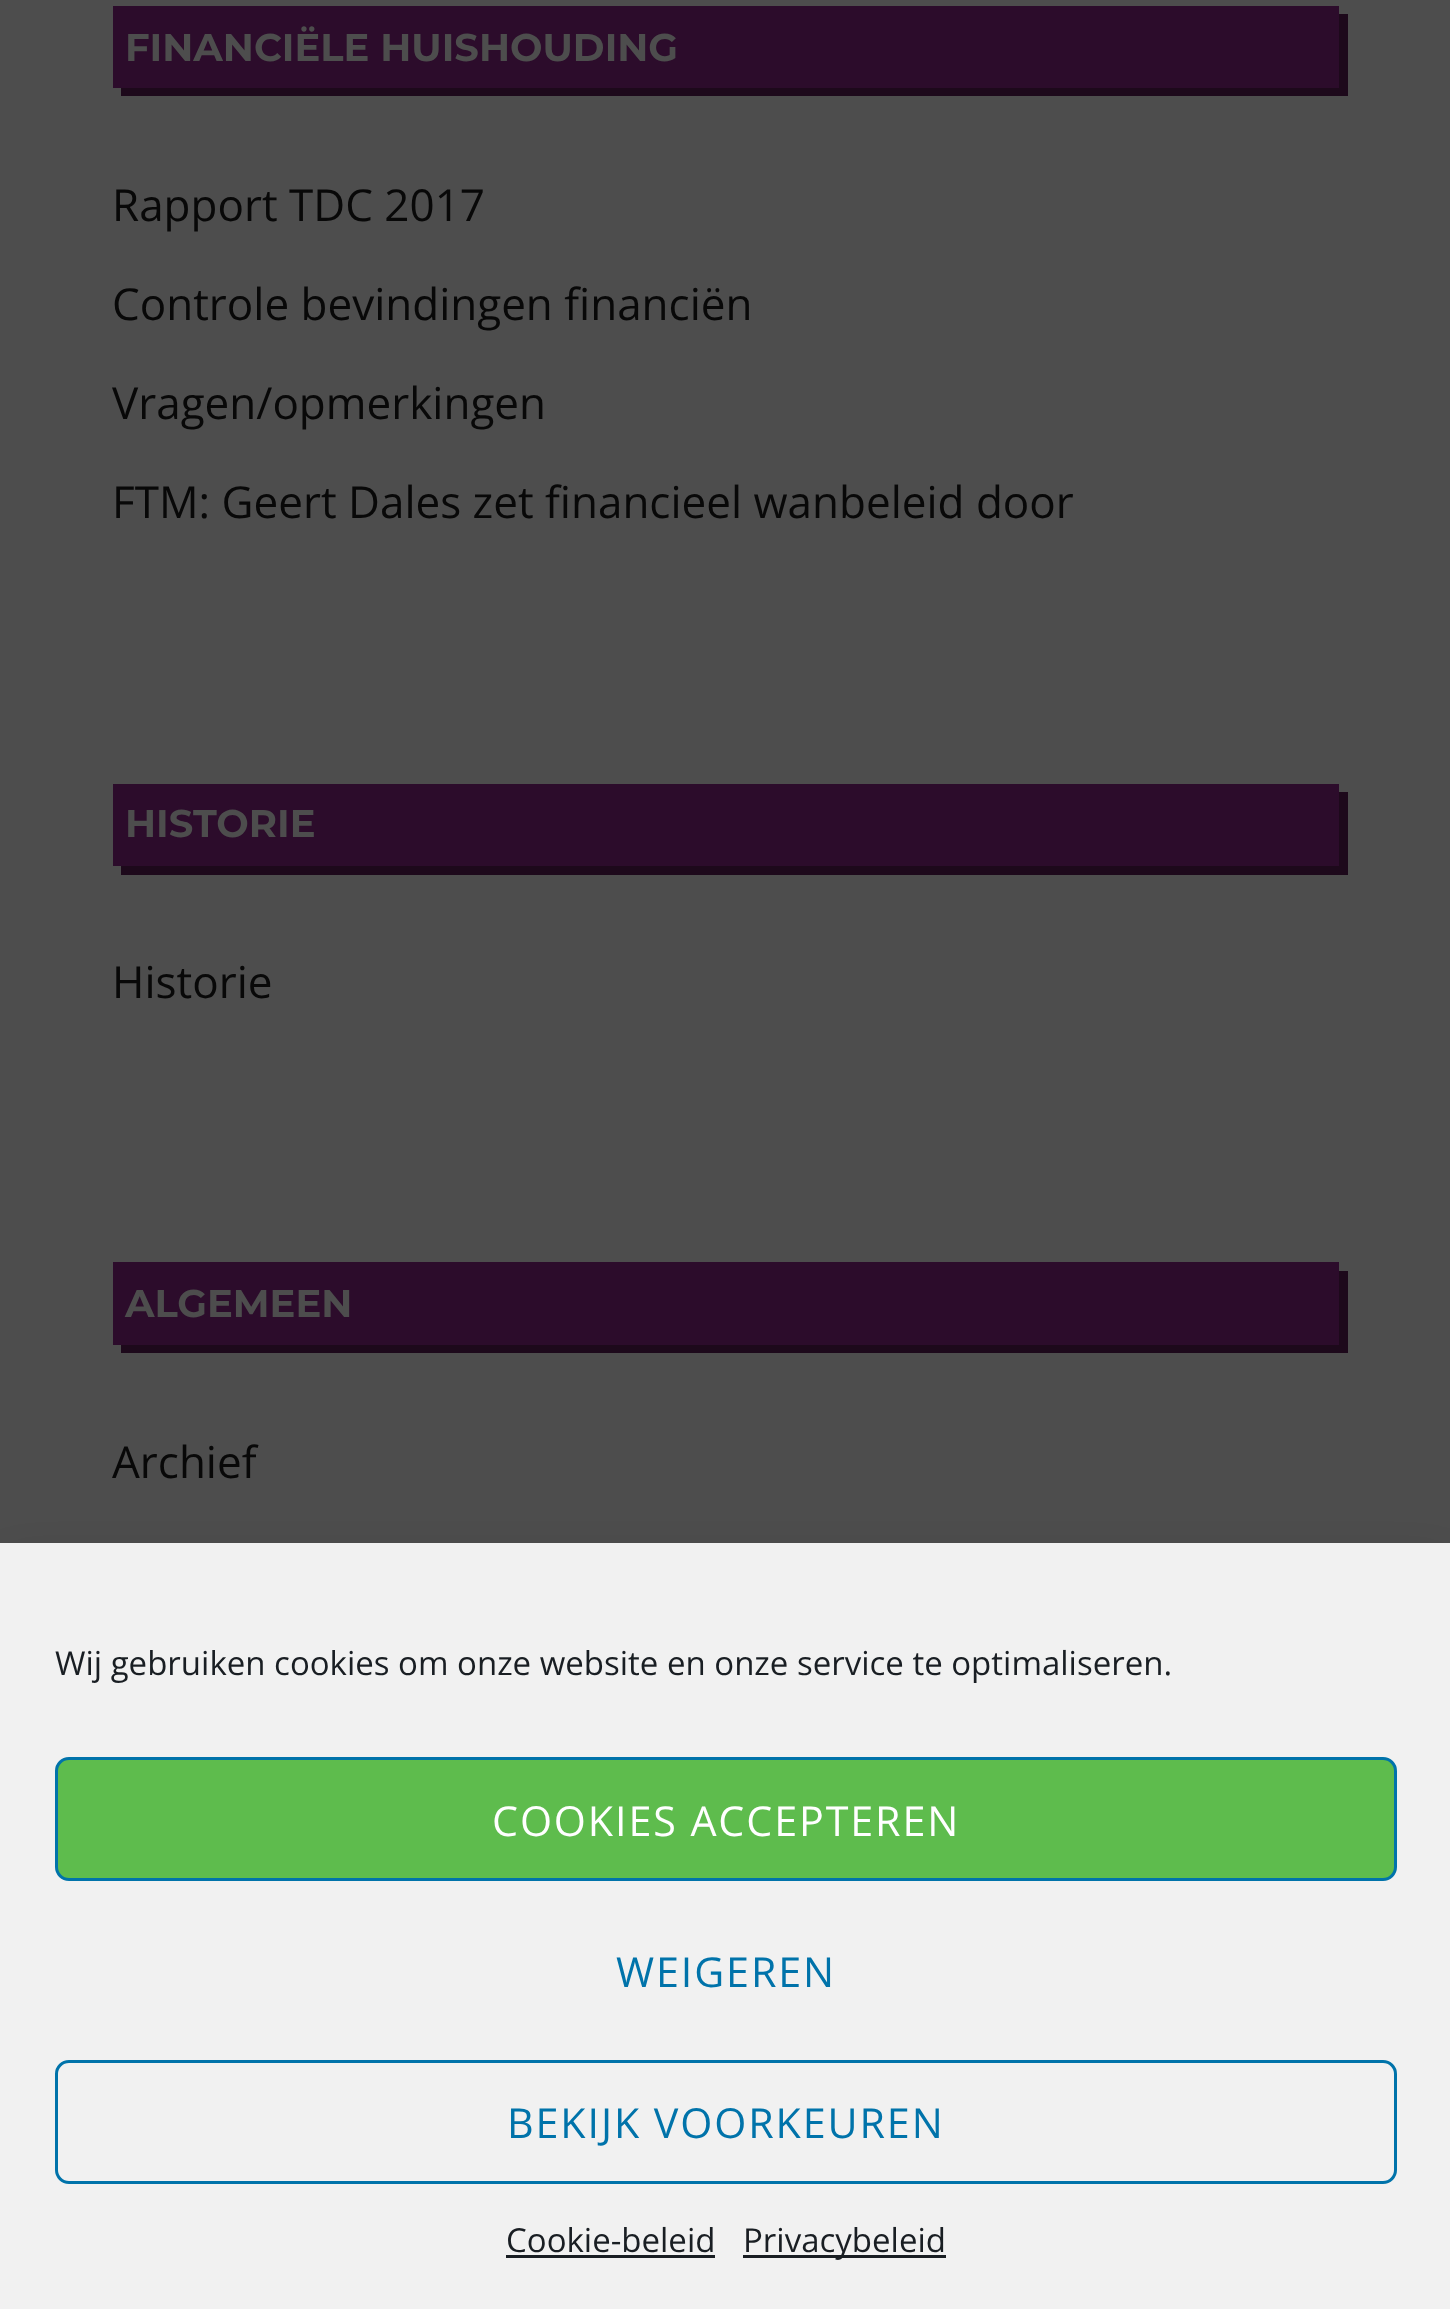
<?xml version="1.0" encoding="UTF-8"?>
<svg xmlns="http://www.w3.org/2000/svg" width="1450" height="2309">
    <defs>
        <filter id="blur1" x="-50%" y="-200%" width="200%" height="500%"><feGaussianBlur stdDeviation="27.5"/></filter>
    </defs>
    <rect width="100%" height="100%" fill="#4D4D4D"/>
    <path d="M 121 88 V 96 H 1348 V 14 H 1339 V 88 Z" fill="#1D091B"/>
    <rect x="113" y="6" width="1226" height="82" fill="#2C0C2B"/>
    <text x="125" y="61" font-family="Montserrat" font-size="38.5" font-weight="700" fill="#4D4D4D">FINANCIËLE HUISHOUDING</text>
    <text x="112" y="221" font-family="Open Sans" font-size="44" fill="#080808">Rapport TDC 2017</text>
    <text x="112" y="320" font-family="Open Sans" font-size="44" fill="#080808">Controle bevindingen financiën</text>
    <text x="112" y="419" font-family="Open Sans" font-size="44" fill="#080808">Vragen/opmerkingen</text>
    <text x="112" y="518" font-family="Open Sans" font-size="44" fill="#080808">FTM: Geert Dales zet financieel wanbeleid door</text>
    <path d="M 121 866 V 875 H 1348 V 792 H 1339 V 866 Z" fill="#1D091B"/>
    <rect x="113" y="784" width="1226" height="82" fill="#2C0C2B"/>
    <text x="125" y="837" font-family="Montserrat" font-size="38.5" font-weight="700" fill="#4D4D4D">HISTORIE</text>
    <text x="112" y="998" font-family="Open Sans" font-size="44" fill="#080808">Historie</text>
    <path d="M 121 1345 V 1353 H 1348 V 1271 H 1339 V 1345 Z" fill="#1D091B"/>
    <rect x="113" y="1262" width="1226" height="83" fill="#2C0C2B"/>
    <text x="125" y="1317" font-family="Montserrat" font-size="38.5" font-weight="700" fill="#4D4D4D">ALGEMEEN</text>
    <text x="112" y="1478" font-family="Open Sans" font-size="44" fill="#080808">Archief</text>
    <rect x="0" y="1570" width="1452" height="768" fill="#000000" fill-opacity="0.19" filter="url(#blur1)"/>
    <rect x="0" y="1543" width="1450" height="766" fill="#F1F1F1"/>
    <text x="55" y="1675" font-family="Open Sans" font-size="33" fill="#191E23">Wij gebruiken cookies om onze website en onze service te optimaliseren.</text>
    <rect x="56.5" y="1758.5" width="1339" height="121" rx="12.5" fill="#5EBC4D" stroke="#0073AA" stroke-width="3"/>
    <text x="492" y="1836" font-family="Open Sans" font-size="41.25" letter-spacing="1.9" fill="#FFFFFF">COOKIES ACCEPTEREN</text>
    <text x="616" y="1987" font-family="Open Sans" font-size="41.25" letter-spacing="1.9" fill="#0073AA">WEIGEREN</text>
    <rect x="56.5" y="2061.5" width="1339" height="121" rx="12.5" fill="none" stroke="#0073AA" stroke-width="3"/>
    <text x="507" y="2138" font-family="Open Sans" font-size="41.25" letter-spacing="1.9" fill="#0073AA">BEKIJK VOORKEUREN</text>
    <text x="506" y="2252" font-family="Open Sans" font-size="33" fill="#191E23">Cookie-beleid</text>
    <rect x="506" y="2255" width="209" height="3" fill="#191E23"/>
    <rect x="743" y="2255" width="203" height="3" fill="#191E23"/>
    <text x="743" y="2252" font-family="Open Sans" font-size="33" fill="#191E23">Privacybeleid</text>
</svg>
